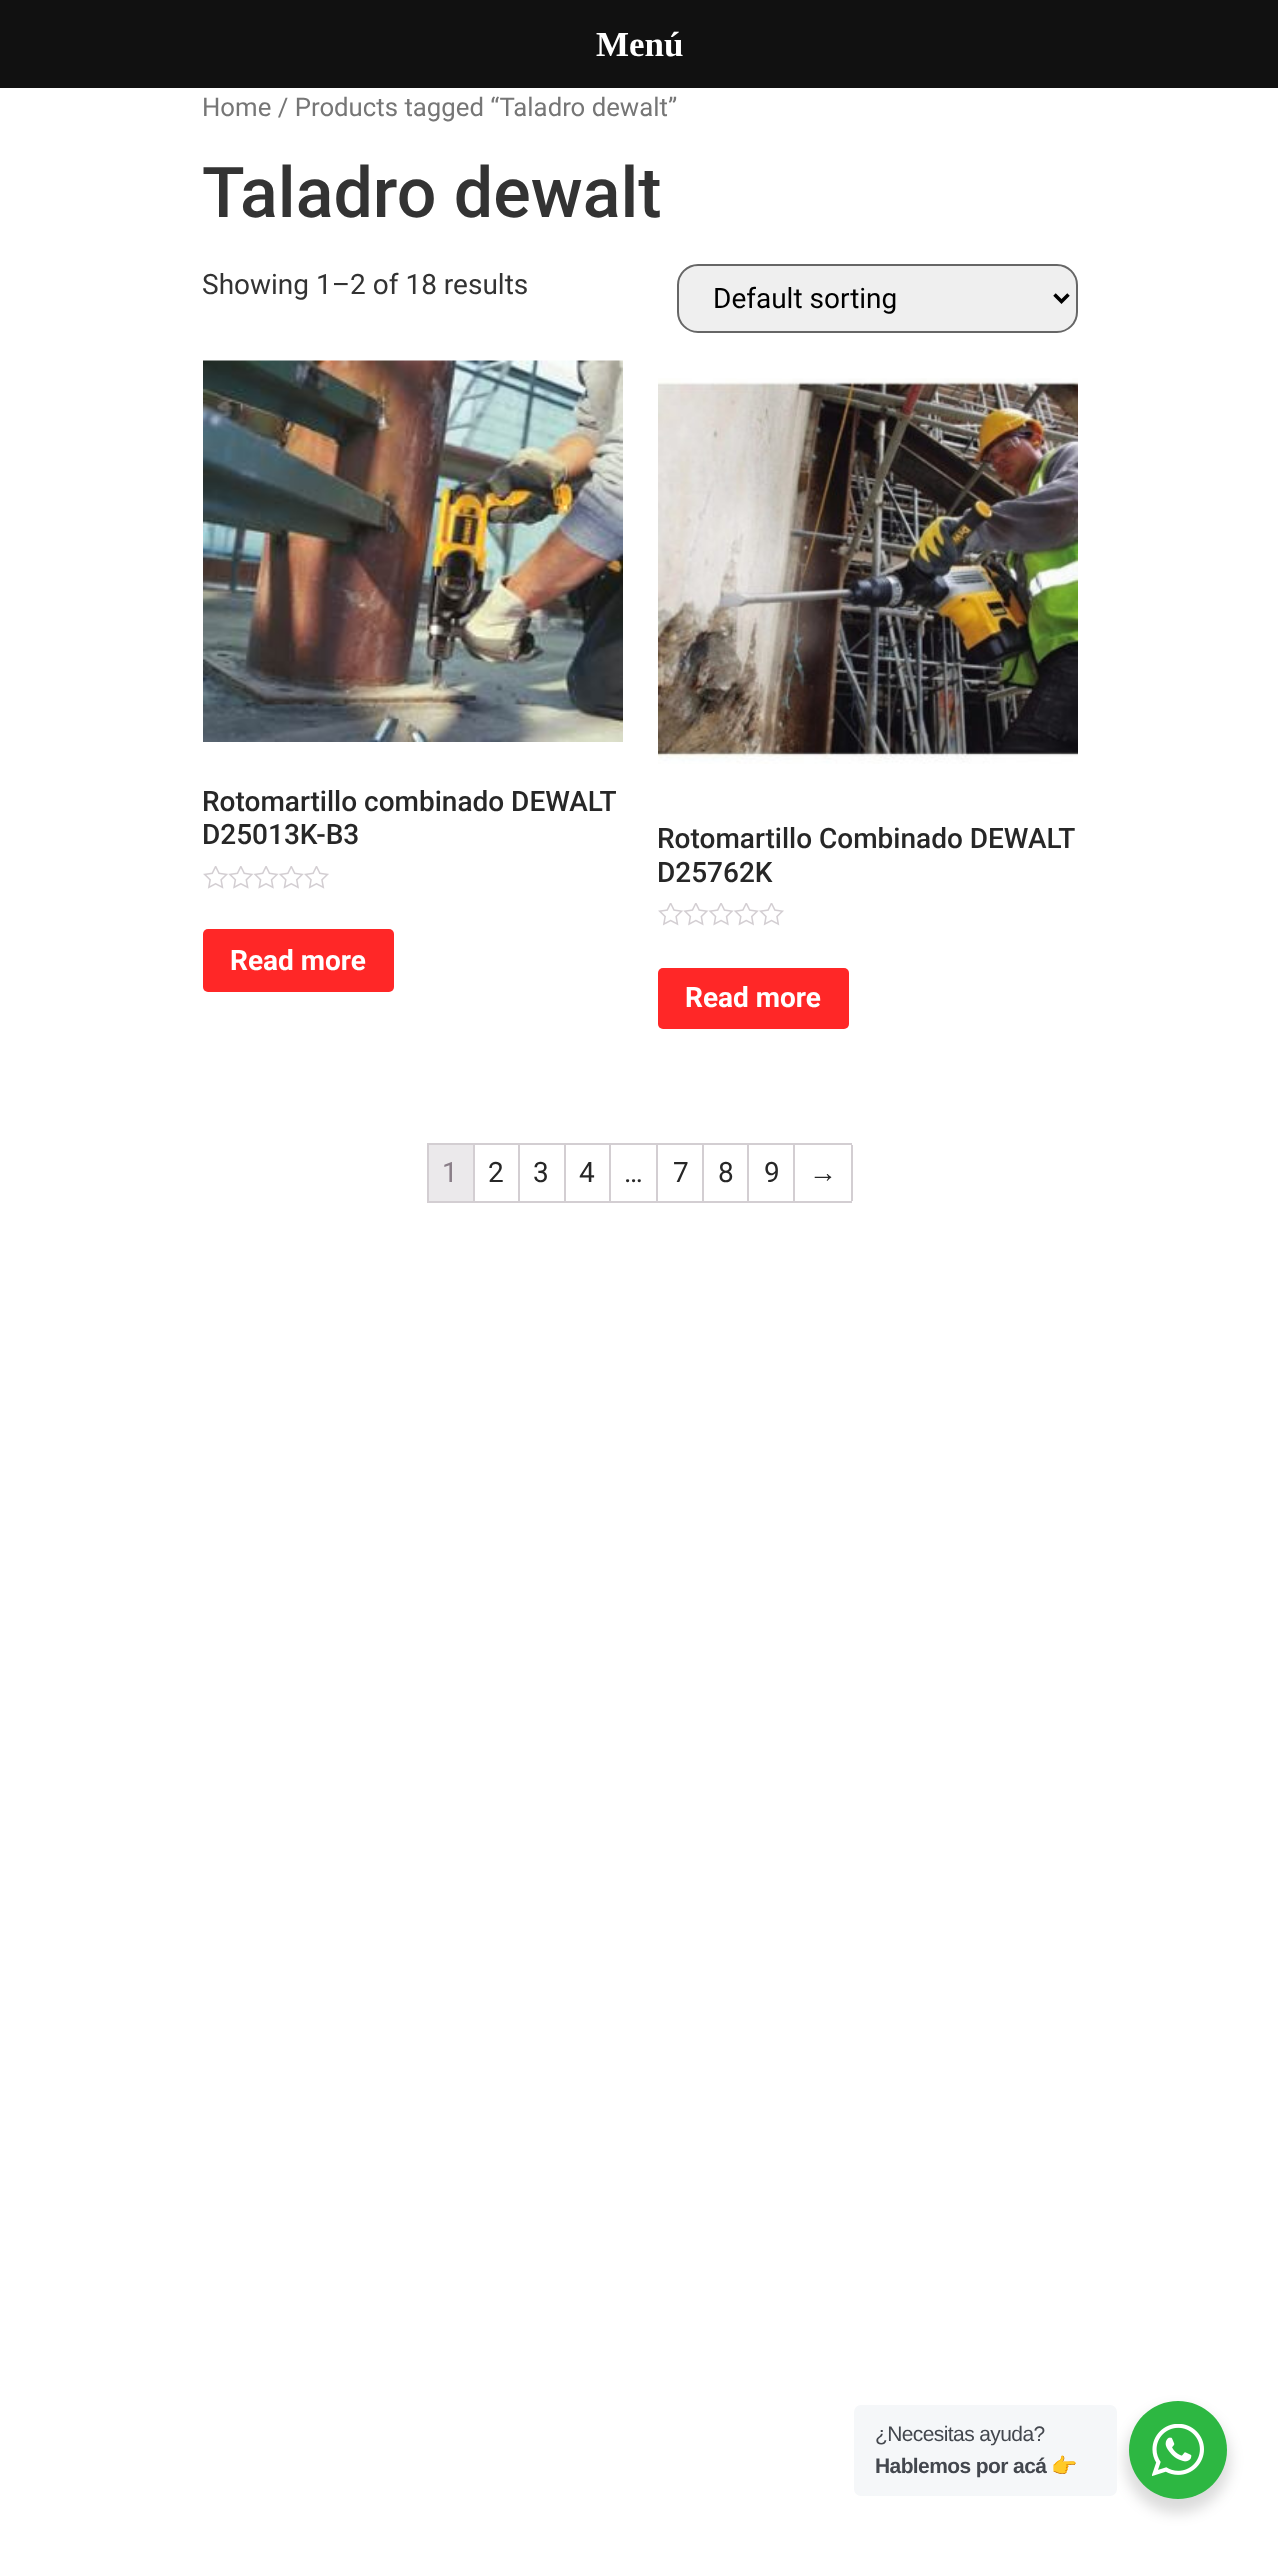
<?xml version="1.0" encoding="UTF-8"?>
<svg xmlns="http://www.w3.org/2000/svg" width="1278" height="2551">
    <defs>
        <filter id="blur1" x="-50%" y="-200%" width="200%" height="500%"><feGaussianBlur stdDeviation="7"/></filter>
    </defs>
    <rect width="100%" height="100%" fill="#FFFFFF"/>
    <rect x="0" y="0" width="1278" height="88" fill="#111111"/>
    <text x="596" y="56" font-family="Liberation Serif" font-size="35" font-weight="700" fill="#FFFFFF">Menú</text>
    <text x="202" y="116" font-family="Roboto" font-size="25.75" fill="#767676">Home / Products tagged “Taladro dewalt”</text>
    <text x="202" y="217" font-family="Roboto" font-size="70" font-weight="500" fill="#333333">Taladro dewalt</text>
    <text x="202" y="294" font-family="Roboto" font-size="28" fill="#333333">Showing 1–2 of 18 results</text>
    <rect x="678" y="265" width="399" height="67" rx="20" fill="#EFEFEF" stroke="#666666" stroke-width="2"/>
    <path d="M 1054.5 294.5 L 1061.5 301.5 L 1068.5 294.5" fill="none" stroke="#000000" stroke-width="3.5"/>
    <text x="713" y="308" font-family="Roboto" font-size="28" fill="#000000">Default sorting</text>
    <image x="203" y="360" width="420" height="382" href="img_01.png"/>
    <text font-family="Roboto" font-size="28" font-weight="500" fill="#272727">
        <tspan x="202" y="811">Rotomartillo combinado DEWALT</tspan>
        <tspan x="202" y="844">D25013K-B3</tspan>
    </text>
    <image x="203" y="866" width="126" height="23" href="img_02.png"/>
    <rect x="203" y="929" width="191" height="63" rx="5" fill="#FF2727"/>
    <text x="230" y="970" font-family="Roboto" font-size="28" font-weight="700" fill="#FFFFFF">Read more</text>
    <image x="658" y="378" width="420" height="386" href="img_03.png"/>
    <text font-family="Roboto" font-size="28" font-weight="500" fill="#272727">
        <tspan x="657" y="848">Rotomartillo Combinado DEWALT</tspan>
        <tspan x="657" y="882">D25762K</tspan>
    </text>
    <image x="658" y="903" width="126" height="23" href="img_04.png"/>
    <rect x="658" y="968" width="191" height="61" rx="5" fill="#FF2727"/>
    <text x="685" y="1007" font-family="Roboto" font-size="28" font-weight="700" fill="#FFFFFF">Read more</text>
    <rect x="427" y="1143" width="425" height="2" fill="#D3CED2"/>
    <rect x="427" y="1201" width="425" height="2" fill="#D3CED2"/>
    <rect x="427" y="1143" width="2" height="59" fill="#D3CED2"/>
    <rect x="473" y="1145" width="2" height="56" fill="#D3CED2"/>
    <rect x="429" y="1145" width="44" height="56" fill="#EBE9EB"/>
    <text x="442" y="1182" font-family="Roboto" font-size="28" fill="#8A7E88">1</text>
    <rect x="518" y="1145" width="2" height="56" fill="#D3CED2"/>
    <text x="488" y="1182" font-family="Roboto" font-size="28" fill="#272727">2</text>
    <rect x="564" y="1145" width="2" height="56" fill="#D3CED2"/>
    <text x="533" y="1182" font-family="Roboto" font-size="28" fill="#272727">3</text>
    <rect x="609" y="1145" width="2" height="56" fill="#D3CED2"/>
    <text x="579" y="1182" font-family="Roboto" font-size="28" fill="#272727">4</text>
    <rect x="656" y="1145" width="2" height="56" fill="#D3CED2"/>
    <text x="624" y="1182" font-family="Roboto" font-size="28" fill="#272727">…</text>
    <rect x="702" y="1145" width="2" height="56" fill="#D3CED2"/>
    <text x="673" y="1182" font-family="Roboto" font-size="28" fill="#272727">7</text>
    <rect x="747" y="1145" width="2" height="56" fill="#D3CED2"/>
    <text x="718" y="1182" font-family="Roboto" font-size="28" fill="#272727">8</text>
    <rect x="793" y="1145" width="2" height="56" fill="#D3CED2"/>
    <text x="764" y="1182" font-family="Roboto" font-size="28" fill="#272727">9</text>
    <rect x="851" y="1145" width="2" height="56" fill="#D3CED2"/>
    <text x="809" y="1182" font-family="Liberation Sans" font-size="28" fill="#272727">→</text>
    <rect x="1125" y="2408" width="105" height="105" rx="52.5" fill="#000000" fill-opacity="0.14" filter="url(#blur1)"/>
    <rect x="854" y="2405" width="263" height="91" rx="7" fill="#F5F7F9"/>
    <text x="875" y="2441" font-family="Liberation Sans" font-size="21" letter-spacing="-0.6" fill="#43474E">¿Necesitas ayuda?</text>
    <text x="875" y="2473" font-family="Liberation Sans" font-size="21" font-weight="700" letter-spacing="-0.6" fill="#43474E">Hablemos por acá</text>
    <text x="1051" y="2473" font-family="Noto Color Emoji" font-size="21" font-weight="700" letter-spacing="-0.6" fill="#43474E">👉</text>
    <circle cx="1178" cy="2450" r="49" fill="#2DB742"/>
    <image x="1152" y="2424" width="52" height="52" href="img_05.png"/>
</svg>
